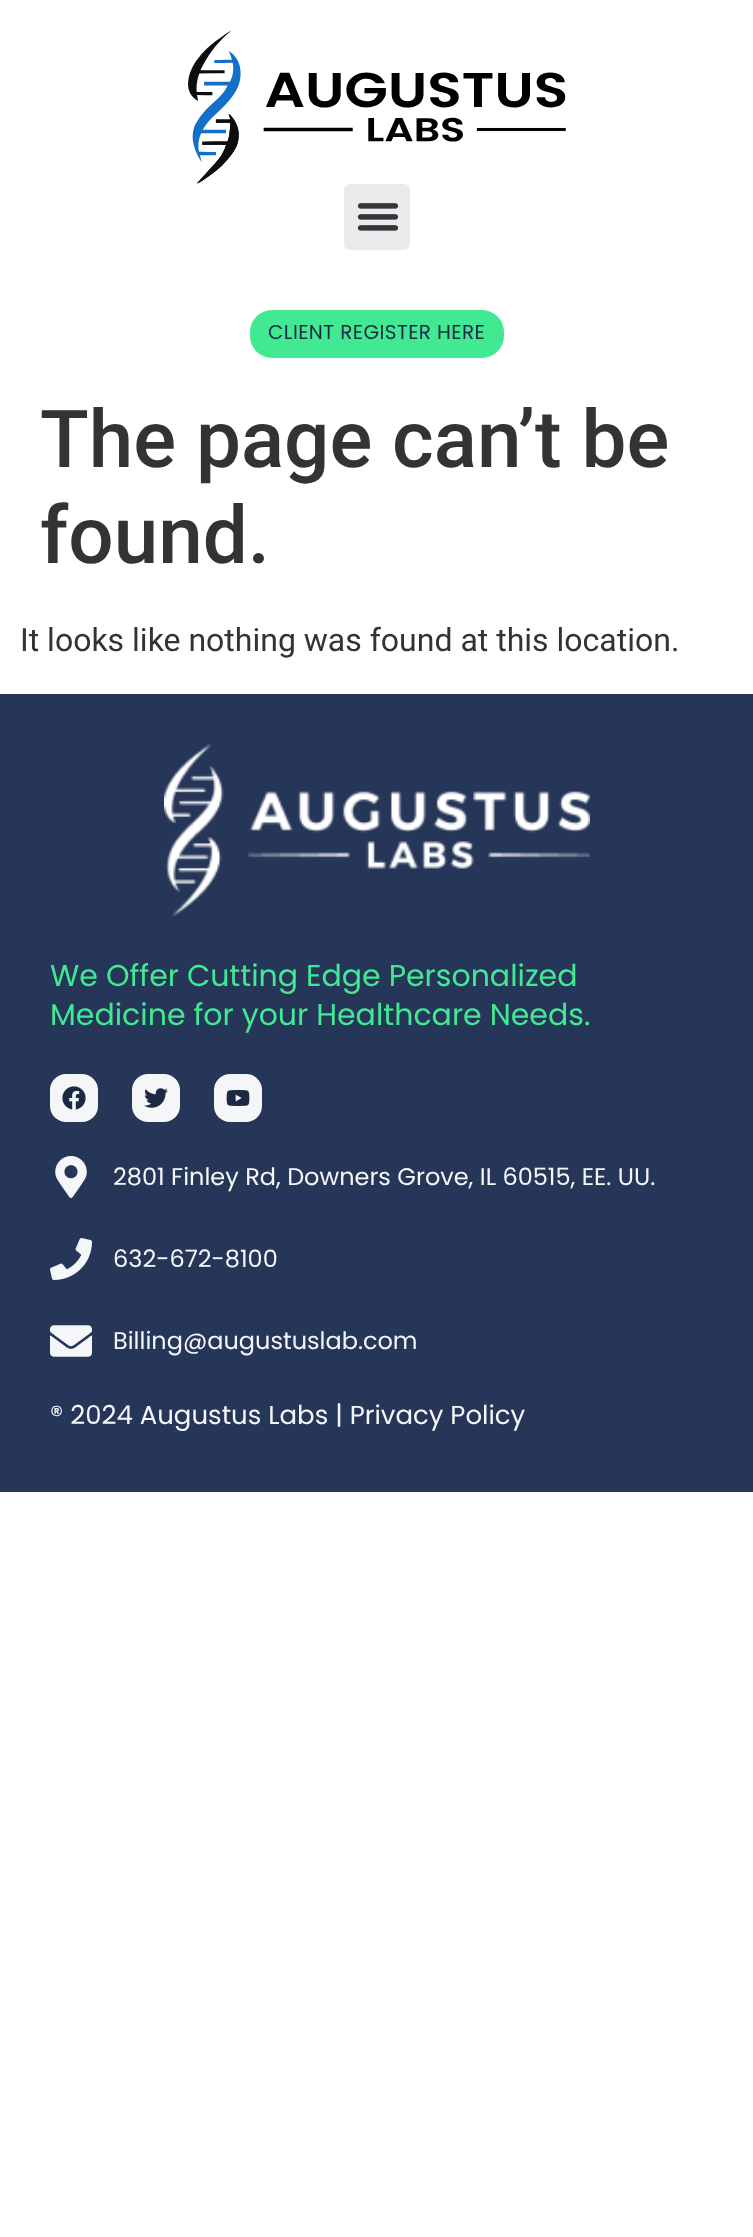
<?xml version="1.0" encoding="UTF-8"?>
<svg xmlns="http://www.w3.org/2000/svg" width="753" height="2237">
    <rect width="100%" height="100%" fill="#FFFFFF"/>
    <image x="188" y="30" width="378" height="154" href="img_01.png"/>
    <rect x="344" y="184" width="66" height="66" rx="6" fill="#EBEBEB"/>
    <image x="357" y="203" width="42" height="28" href="img_02.png"/>
    <rect x="250" y="310" width="254" height="48" rx="22" fill="#41E993"/>
    <text x="268" y="339" font-family="Poppins" font-size="20" letter-spacing="0.4" fill="#1C2943">CLIENT REGISTER HERE</text>
    <text font-family="Roboto" font-size="80" font-weight="500" fill="#333333">
        <tspan x="40" y="467">The page can’t be</tspan>
        <tspan x="40" y="563">found.</tspan>
    </text>
    <text x="20" y="651" font-family="Roboto" font-size="32" fill="#333333">It looks like nothing was found at this location.</text>
    <rect x="0" y="694" width="753" height="798" fill="#263658"/>
    <image x="164" y="744" width="426" height="172" href="img_03.png"/>
    <text font-family="Poppins" font-size="30" fill="#41E993">
        <tspan x="50" y="986">We Offer Cutting Edge Personalized</tspan>
        <tspan x="50" y="1025">Medicine for your Healthcare Needs.</tspan>
    </text>
    <rect x="50" y="1074" width="48" height="48" rx="16" fill="#F5F6F8"/>
    <image x="62" y="1086" width="24" height="24" href="img_04.png"/>
    <rect x="132" y="1074" width="48" height="48" rx="16" fill="#F5F6F8"/>
    <image x="144" y="1088" width="24" height="20" href="img_05.png"/>
    <rect x="214" y="1074" width="48" height="48" rx="16" fill="#F5F6F8"/>
    <image x="226" y="1090" width="24" height="16" href="img_06.png"/>
    <image x="55" y="1156" width="32" height="42" href="img_07.png"/>
    <text x="113" y="1185" font-family="Poppins" font-size="24" fill="#F5F6F8">2801 Finley Rd, Downers Grove, IL 60515, EE. UU.</text>
    <image x="50" y="1238" width="42" height="42" href="img_08.png"/>
    <text x="113" y="1267" font-family="Poppins" font-size="24" fill="#F5F6F8">632-672-8100</text>
    <image x="50" y="1325" width="42" height="32" href="img_09.png"/>
    <text x="113" y="1349" font-family="Poppins" font-size="24" fill="#F5F6F8">Billing@augustuslab.com</text>
    <text x="50" y="1424" font-family="Poppins" font-size="26" fill="#F5F6F8">® 2024 Augustus Labs | Privacy Policy</text>
</svg>
